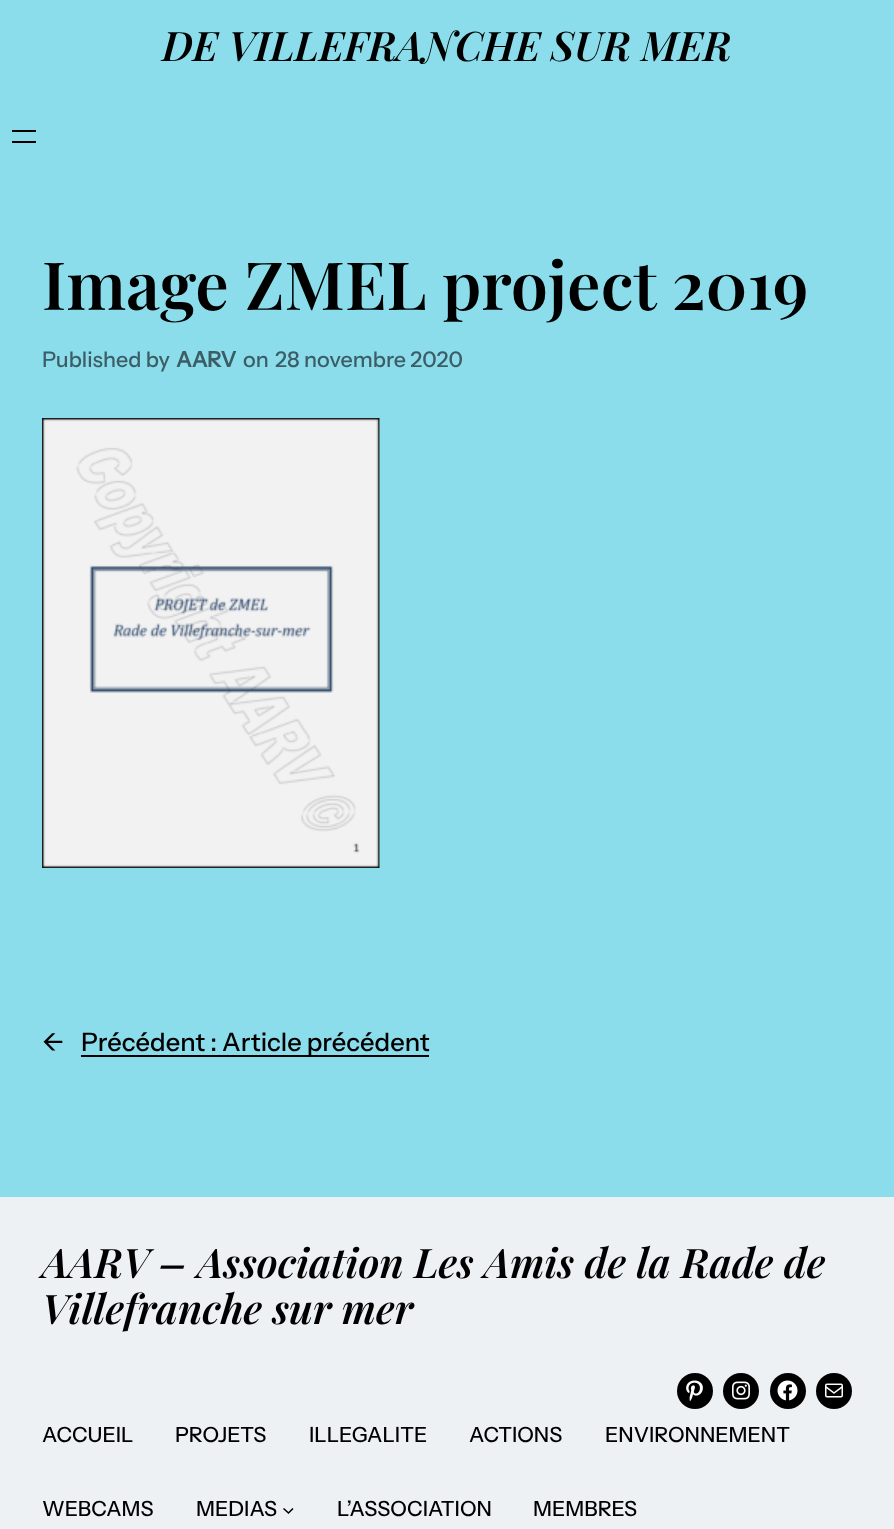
<?xml version="1.0" encoding="UTF-8"?>
<svg xmlns="http://www.w3.org/2000/svg" width="894" height="1529">
    <rect width="100%" height="100%" fill="#8BDDEB"/>
    <text x="162" y="61" font-family="Playfair Display" font-size="40.75" font-weight="600" font-style="italic" fill="#000000">DE VILLEFRANCHE SUR MER</text>
    <rect x="12" y="130" width="24" height="2" fill="#000000"/>
    <rect x="12" y="141" width="24" height="2" fill="#000000"/>
    <text x="42" y="310" font-family="Playfair Display" font-size="66.5" font-weight="600" fill="#000000">Image ZMEL project 2019</text>
    <text x="42" y="367" font-family="Instrument Sans" font-size="21.5" font-weight="500" fill="#3C5D66">Published by</text>
    <text x="176" y="367" font-family="Instrument Sans" font-size="21.5" font-weight="700" fill="#3C5D66">AARV</text>
    <text x="243" y="367" font-family="Instrument Sans" font-size="21.5" font-weight="500" fill="#3C5D66">on</text>
    <text x="275" y="367" font-family="Instrument Sans" font-size="21.5" font-weight="500" fill="#3C5D66">28 novembre 2020</text>
    <image x="42" y="418" width="338" height="450" href="img_01.png"/>
    <text x="42" y="1051" font-family="Instrument Sans" font-size="25.5" font-weight="500" fill="#000000">←</text>
    <rect x="81" y="1055" width="348" height="2" fill="#000000"/>
    <text x="81" y="1051" font-family="Instrument Sans" font-size="25.5" font-weight="500" fill="#000000">Précédent : Article précédent</text>
    <rect x="0" y="1197" width="894" height="332" fill="#EDF1F4"/>
    <text font-family="Playfair Display" font-size="40.75" font-weight="600" font-style="italic" fill="#000000">
        <tspan x="42" y="1278">AARV – Association Les Amis de la Rade de</tspan>
        <tspan x="42" y="1324">Villefranche sur mer</tspan>
    </text>
    <circle cx="695" cy="1391" r="18" fill="#000000"/>
    <image x="686" y="1380" width="17" height="22" href="img_02.png"/>
    <circle cx="741" cy="1391" r="18" fill="#000000"/>
    <image x="732" y="1381" width="18" height="19" href="img_03.png"/>
    <circle cx="788" cy="1391" r="18" fill="#000000"/>
    <image x="777" y="1380" width="21" height="21" href="img_04.png"/>
    <circle cx="834" cy="1391" r="18" fill="#000000"/>
    <image x="825" y="1383" width="18" height="15" href="img_05.png"/>
    <text x="42" y="1442" font-family="Instrument Sans" font-size="21" font-weight="500" fill="#000000">ACCUEIL</text>
    <text x="175" y="1442" font-family="Instrument Sans" font-size="21" font-weight="500" fill="#000000">PROJETS</text>
    <text x="309" y="1442" font-family="Instrument Sans" font-size="21" font-weight="500" fill="#000000">ILLEGALITE</text>
    <text x="469" y="1442" font-family="Instrument Sans" font-size="21" font-weight="500" fill="#000000">ACTIONS</text>
    <text x="605" y="1442" font-family="Instrument Sans" font-size="21" font-weight="500" fill="#000000">ENVIRONNEMENT</text>
    <text x="42" y="1516" font-family="Instrument Sans" font-size="21" font-weight="500" fill="#000000">WEBCAMS</text>
    <text x="196" y="1516" font-family="Instrument Sans" font-size="21" font-weight="500" fill="#000000">MEDIAS</text>
    <path d="M 283.5 1508.5 L 288.5 1513 L 293 1508.5" fill="none" stroke="#000000" stroke-width="1.6"/>
    <text x="337" y="1516" font-family="Instrument Sans" font-size="21" font-weight="500" fill="#000000">L’ASSOCIATION</text>
    <text x="533" y="1516" font-family="Instrument Sans" font-size="21" font-weight="500" fill="#000000">MEMBRES</text>
</svg>
